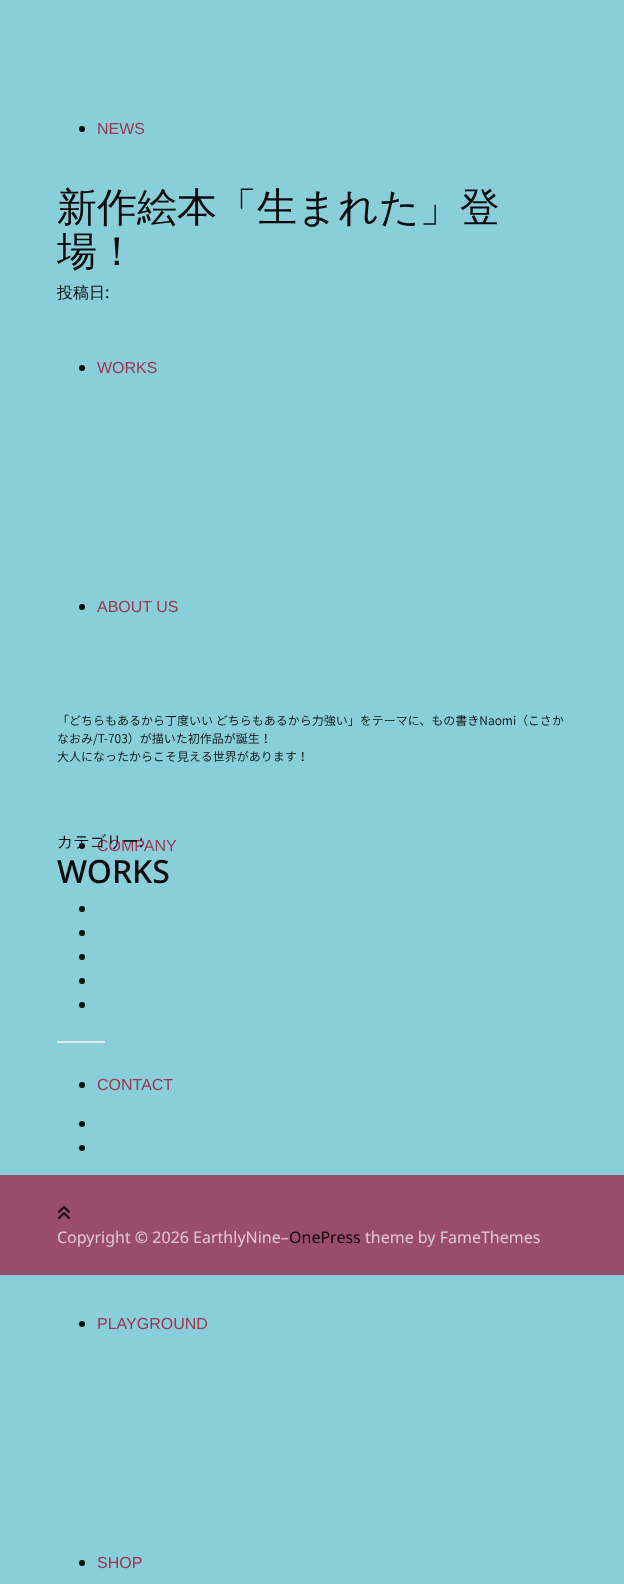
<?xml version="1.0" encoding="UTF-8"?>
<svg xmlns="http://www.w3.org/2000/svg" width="624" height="1584">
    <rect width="100%" height="100%" fill="#89CFDA"/>
    <circle cx="82" cy="129" r="3" fill="#0A0A0A"/>
    <text x="97" y="134" font-family="Liberation Sans" font-size="16" fill="#9E3450">NEWS</text>
    <circle cx="82" cy="368" r="3" fill="#0A0A0A"/>
    <text x="97" y="373" font-family="Liberation Sans" font-size="16" fill="#9E3450">WORKS</text>
    <circle cx="82" cy="607" r="3" fill="#0A0A0A"/>
    <text x="97" y="612" font-family="Liberation Sans" font-size="16" fill="#9E3450">ABOUT US</text>
    <circle cx="82" cy="846" r="3" fill="#0A0A0A"/>
    <text x="97" y="851" font-family="Liberation Sans" font-size="16" fill="#9E3450">COMPANY</text>
    <circle cx="82" cy="1085" r="3" fill="#0A0A0A"/>
    <text x="97" y="1090" font-family="Liberation Sans" font-size="16" fill="#9E3450">CONTACT</text>
    <circle cx="82" cy="1324" r="3" fill="#0A0A0A"/>
    <text x="97" y="1329" font-family="Liberation Sans" font-size="16" fill="#9E3450">PLAYGROUND</text>
    <circle cx="82" cy="1563" r="3" fill="#0A0A0A"/>
    <text x="97" y="1568" font-family="Liberation Sans" font-size="16" fill="#9E3450">SHOP</text>
    <text font-family="WenQuanYi Zen Hei" font-size="40" font-weight="500" fill="#0A0A0A">
        <tspan x="57" y="221">新作絵本「生まれた」登</tspan>
        <tspan x="57" y="265">場！</tspan>
    </text>
    <text x="57" y="298" font-family="WenQuanYi Zen Hei" font-size="16" font-weight="500" fill="#0A0A0A">投稿日</text>
    <text x="105" y="298" font-family="Noto Sans" font-size="16" fill="#0A0A0A">:</text>
    <text font-family="Noto Sans JP" font-size="12" font-weight="300" fill="#0A0A0A">
        <tspan x="57" y="725">「どちらもあるから丁度いい どちらもあるから力強い」をテーマに、もの書きNaomi（こさか</tspan>
        <tspan x="57" y="743">なおみ/T-703）が描いた初作品が誕生！</tspan>
        <tspan x="57" y="761">大人になったからこそ見える世界があります！</tspan>
    </text>
    <text x="57" y="847" font-family="WenQuanYi Zen Hei" font-size="16" font-weight="500" fill="#0A0A0A">カテゴリー</text>
    <text x="139" y="847" font-family="Noto Sans" font-size="16" fill="#0A0A0A">:</text>
    <text x="57" y="883" font-family="Noto Sans" font-size="32" font-weight="500" fill="#0A0A0A">WORKS</text>
    <circle cx="82" cy="909" r="3" fill="#0A0A0A"/>
    <circle cx="82" cy="933" r="3" fill="#0A0A0A"/>
    <circle cx="82" cy="957" r="3" fill="#0A0A0A"/>
    <circle cx="82" cy="981" r="3" fill="#0A0A0A"/>
    <circle cx="82" cy="1005" r="3" fill="#0A0A0A"/>
    <rect x="57" y="1041" width="48" height="2" fill="#E7E7E7"/>
    <circle cx="82" cy="1124" r="3" fill="#0A0A0A"/>
    <circle cx="82" cy="1148" r="3" fill="#0A0A0A"/>
    <rect x="0" y="1175" width="624" height="100" fill="#994D6B"/>
    <image x="58" y="1206" width="12" height="13" href="img_01.png"/>
    <text x="57" y="1243" font-family="Noto Sans" font-size="16" fill="#E0CAD3">Copyright © 2026 EarthlyNine–</text>
    <text x="289" y="1243" font-family="Noto Sans" font-size="16" fill="#110606">OnePress</text>
    <text x="365" y="1243" font-family="Noto Sans" font-size="16" fill="#E0CAD3">theme by FameThemes</text>
</svg>
